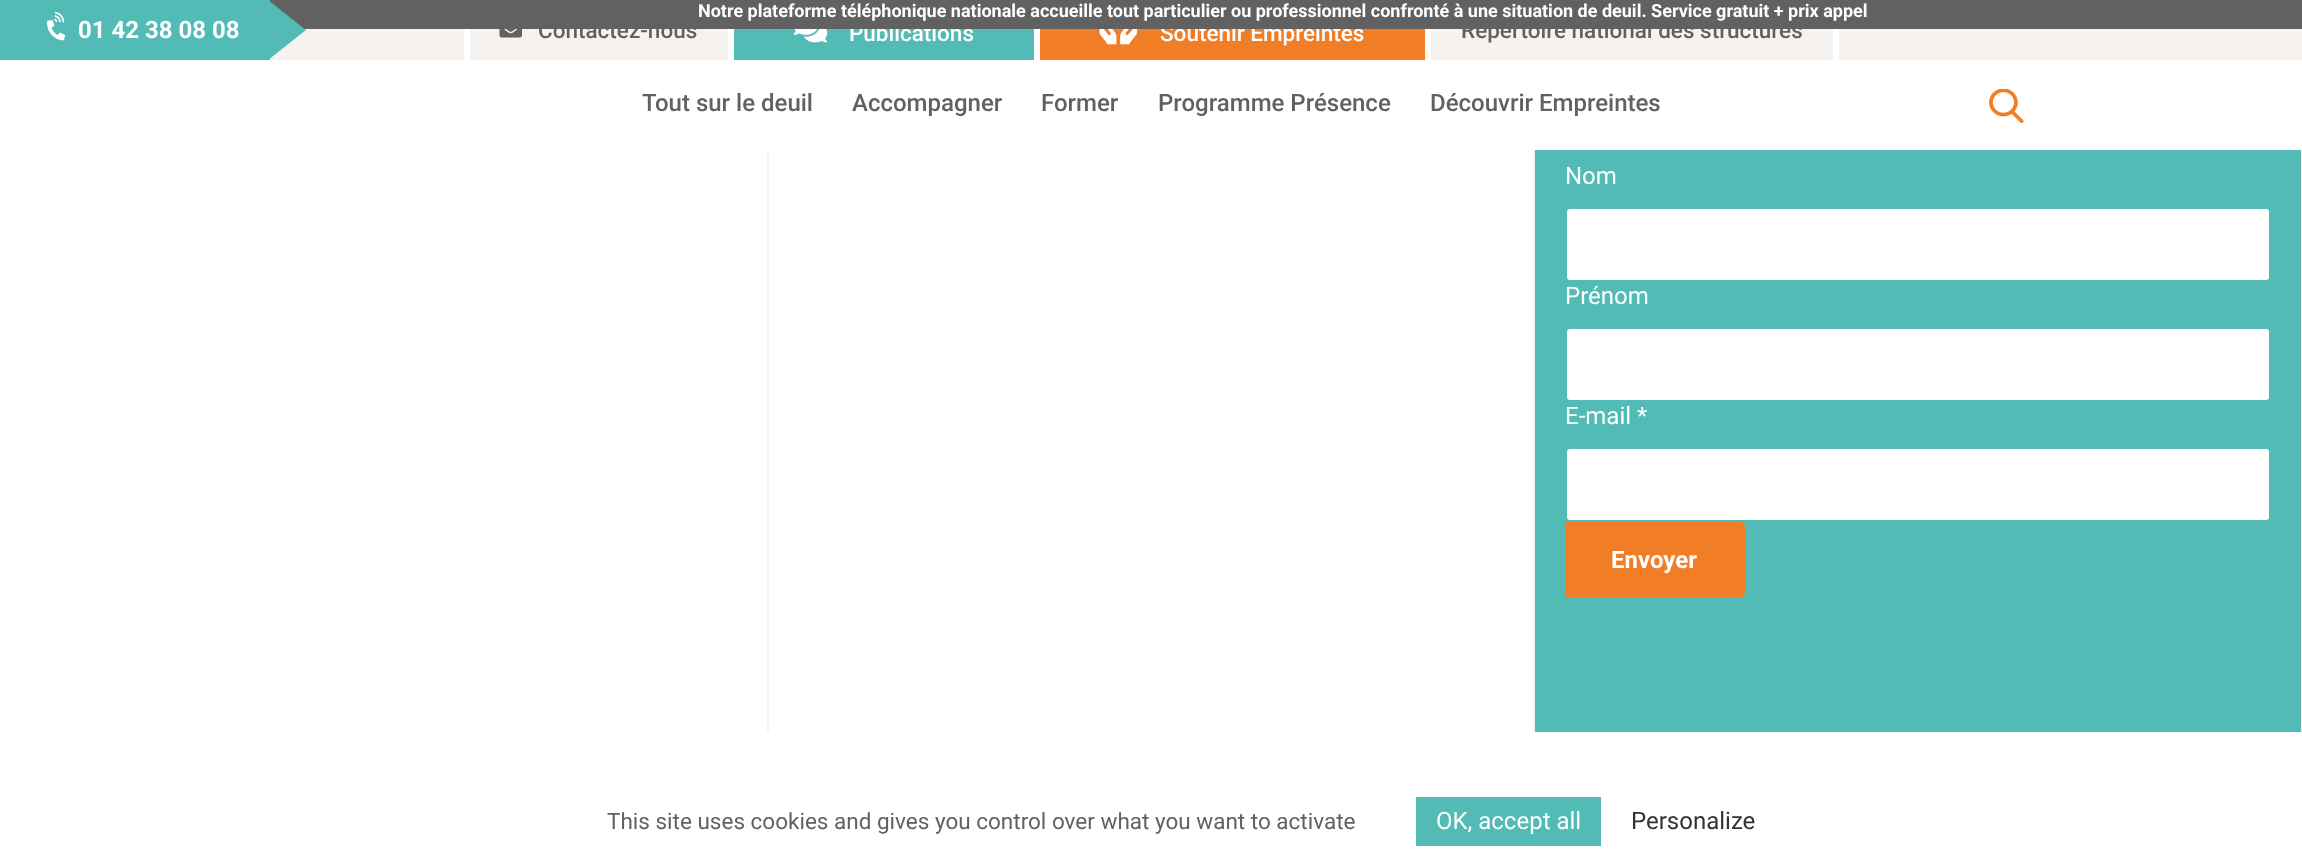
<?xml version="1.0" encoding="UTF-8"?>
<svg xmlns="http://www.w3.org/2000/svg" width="2302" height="860">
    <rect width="100%" height="100%" fill="#FFFFFF"/>
    <rect x="270" y="29" width="2032" height="31" fill="#F6F2F0"/>
    <rect x="734" y="29" width="300" height="31" fill="#52BBB5"/>
    <text x="849" y="41" font-family="Roboto" font-size="22.5" font-weight="500" fill="#FFFFFF">Publications</text>
    <rect x="1040" y="29" width="385" height="31" fill="#F17E26"/>
    <text x="1160" y="41" font-family="Roboto" font-size="22.5" font-weight="500" fill="#FFFFFF">Soutenir Empreintes</text>
    <rect x="270" y="0" width="2032" height="29" fill="#616161"/>
    <rect x="0" y="0" width="270" height="60" fill="#52BBB5"/>
    <path d="M 268 60 V 0 L 306 30 Z" fill="#52BBB5"/>
    <text x="698" y="17" font-family="Roboto" font-size="18" font-weight="700" fill="#FFFFFF">Notre plateforme téléphonique nationale accueille tout particulier ou professionnel confronté à une situation de deuil. Service gratuit + prix appel</text>
    <image x="47" y="11" width="19" height="30" href="img_01.png"/>
    <text x="78" y="38" font-family="Roboto" font-size="24" font-weight="700" fill="#FFFFFF">01 42 38 08 08</text>
    <rect x="464" y="29" width="6" height="31" fill="#FFFFFF"/>
    <image x="499" y="29" width="23" height="9" href="img_02.png"/>
    <text x="538" y="38" font-family="Roboto" font-size="22.5" font-weight="500" fill="#616161">Contactez-nous</text>
    <rect x="728" y="29" width="6" height="31" fill="#FFFFFF"/>
    <image x="793" y="29" width="35" height="14" href="img_03.png"/>
    <rect x="1034" y="29" width="6" height="31" fill="#FFFFFF"/>
    <image x="1099" y="29" width="38" height="16" href="img_04.png"/>
    <rect x="1833" y="29" width="6" height="31" fill="#FFFFFF"/>
    <rect x="1425" y="29" width="6" height="31" fill="#FFFFFF"/>
    <text x="1461" y="38" font-family="Roboto" font-size="22.5" font-weight="500" fill="#616161">Répertoire national des structures</text>
    <text x="642" y="111" font-family="Roboto" font-size="24" font-weight="500" fill="#616161">Tout sur le deuil</text>
    <text x="852" y="111" font-family="Roboto" font-size="24" font-weight="500" fill="#616161">Accompagner</text>
    <text x="1041" y="111" font-family="Roboto" font-size="24" font-weight="500" fill="#616161">Former</text>
    <text x="1158" y="111" font-family="Roboto" font-size="24" font-weight="500" fill="#616161">Programme Présence</text>
    <text x="1430" y="111" font-family="Roboto" font-size="24" font-weight="500" fill="#616161">Découvrir Empreintes</text>
    <image x="1989" y="89" width="35" height="34" href="img_05.png"/>
    <rect x="767" y="150" width="2" height="582" fill="#F6F2F0"/>
    <rect x="1533" y="150" width="2" height="582" fill="#F6F2F0"/>
    <rect x="2301" y="150" width="1" height="582" fill="#F6F2F0"/>
    <rect x="1535" y="150" width="766" height="582" fill="#52BBB5"/>
    <text x="1565" y="184" font-family="Roboto" font-size="24" fill="#FFFFFF">Nom</text>
    <rect x="1566" y="208" width="704" height="73" rx="4" fill="#FFFFFF" stroke="#52BBB5" stroke-width="2"/>
    <text x="1565" y="304" font-family="Roboto" font-size="24" fill="#FFFFFF">Prénom</text>
    <rect x="1566" y="328" width="704" height="73" rx="4" fill="#FFFFFF" stroke="#52BBB5" stroke-width="2"/>
    <text x="1565" y="424" font-family="Roboto" font-size="24" fill="#FFFFFF">E-mail *</text>
    <rect x="1566" y="448" width="704" height="73" rx="4" fill="#FFFFFF" stroke="#52BBB5" stroke-width="2"/>
    <path d="M 1565 522 H 1740 C 1743 522 1745 524 1745 527 V 592 C 1745 595 1743 597 1740 597 H 1565 Z" fill="#F17E26"/>
    <text x="1611" y="568" font-family="Roboto" font-size="24" font-weight="700" fill="#FFFFFF">Envoyer</text>
    <text x="607" y="829" font-family="Roboto" font-size="22.5" fill="#616161">This site uses cookies and gives you control over what you want to activate</text>
    <rect x="1416" y="797" width="185" height="49" fill="#52BBB5"/>
    <text x="1436" y="829" font-family="Roboto" font-size="24" fill="#FFFFFF">OK, accept all</text>
    <text x="1631" y="829" font-family="Roboto" font-size="24" fill="#333333">Personalize</text>
</svg>
